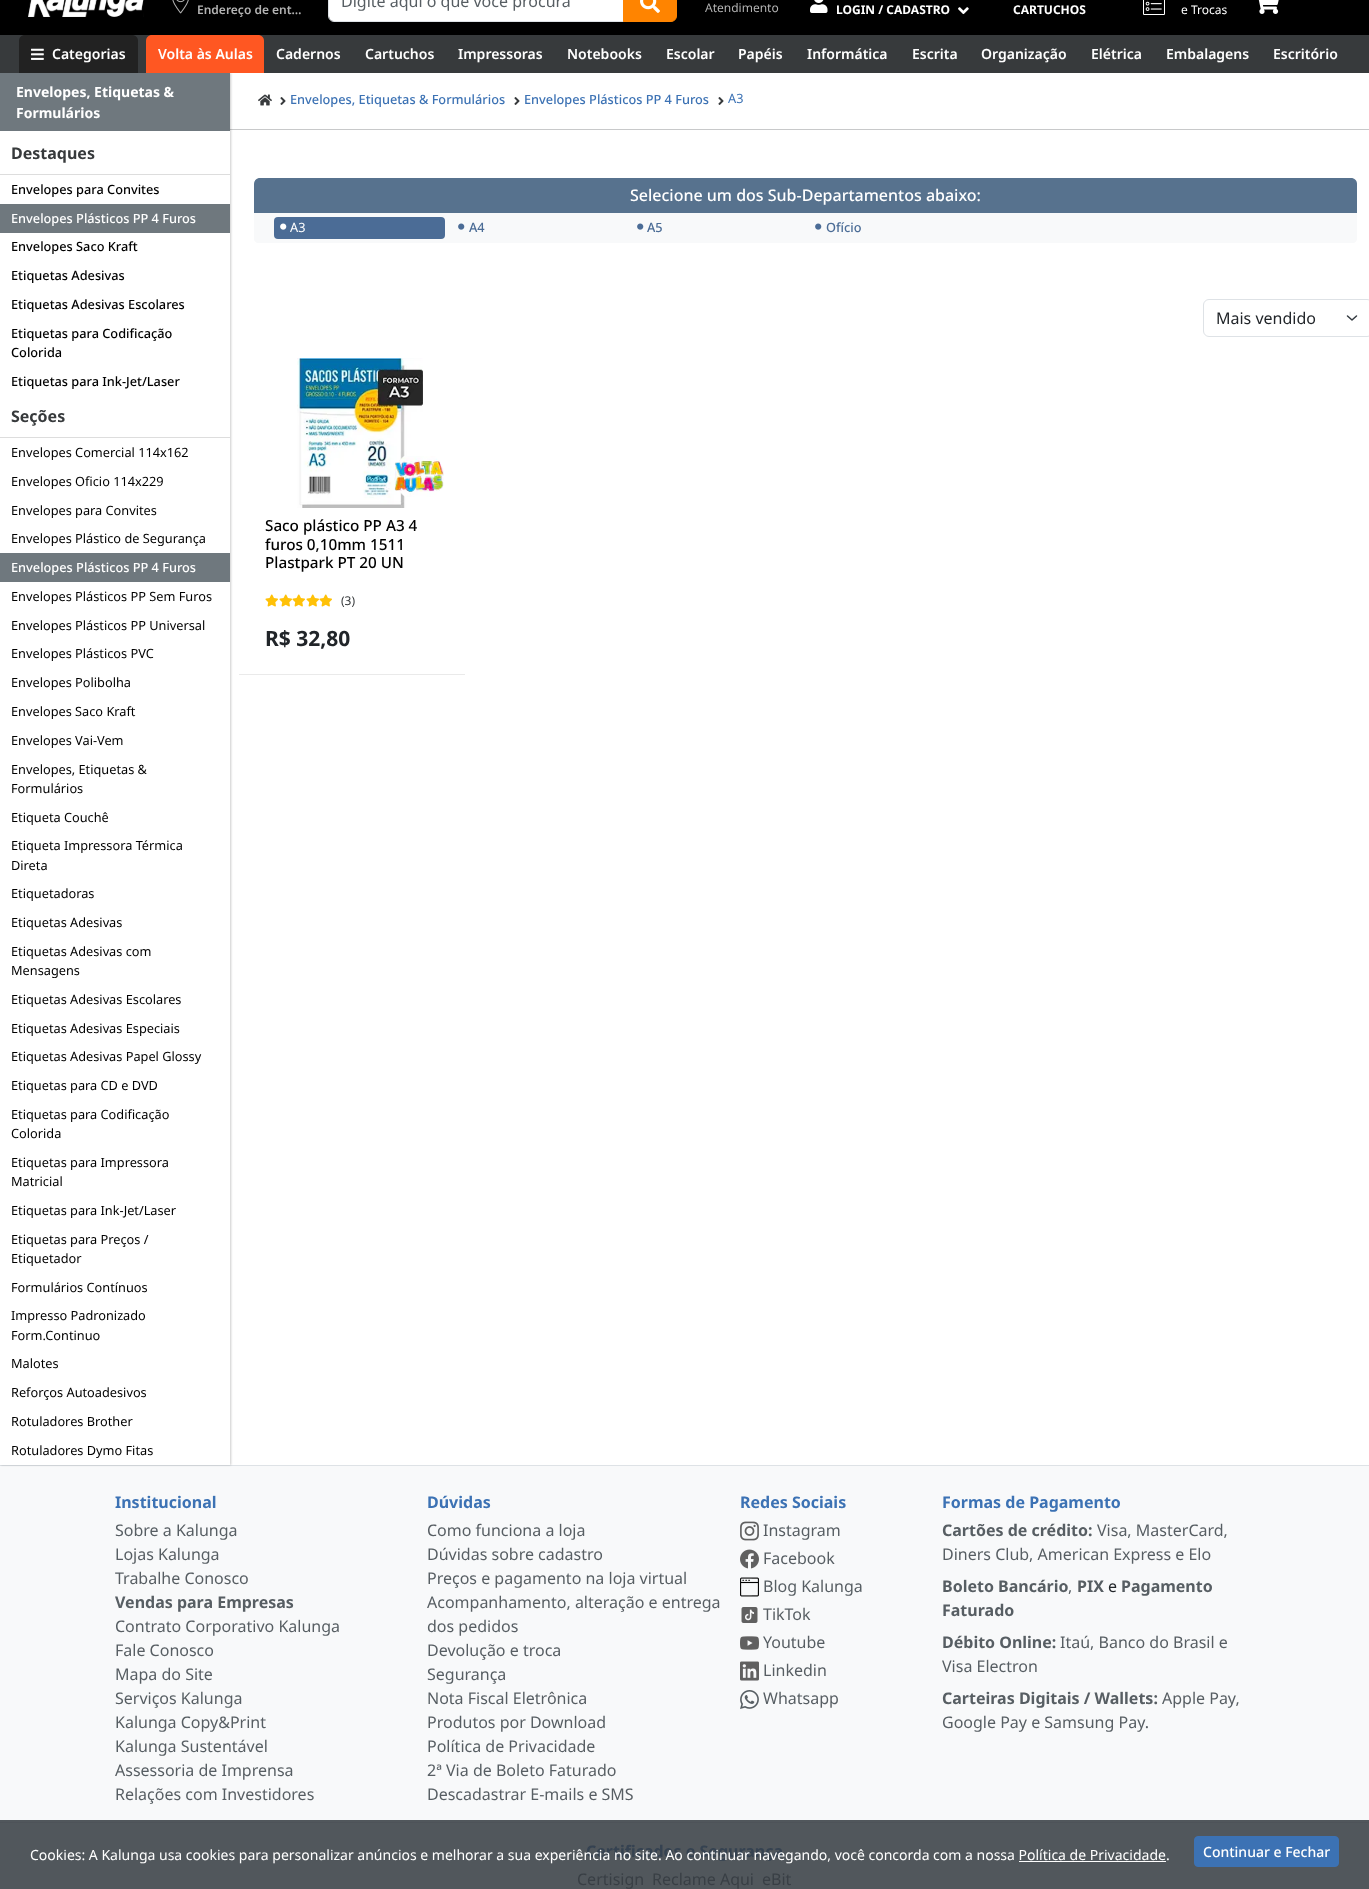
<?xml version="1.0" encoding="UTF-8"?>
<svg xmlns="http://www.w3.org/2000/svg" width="1369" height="1889">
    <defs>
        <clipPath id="clip1"><path d="M 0 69 H 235 V 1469 H 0 Z M 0 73 H 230 V 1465 H 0 Z" clip-rule="evenodd"/></clipPath>
        <filter id="blur1" x="-50%" y="-200%" width="200%" height="500%"><feGaussianBlur stdDeviation="1"/></filter>
    </defs>
    <rect width="100%" height="100%" fill="#FFFFFF"/>
    <rect x="0" y="0" width="1369" height="35" fill="#000000"/>
    <image x="28" y="0" width="116" height="17" href="img_01.png"/>
    <image x="172" y="0" width="17" height="14" href="img_02.png"/>
    <text x="197" y="14" font-family="Noto Sans" font-size="12" font-weight="600" fill="#B3B3B3">Endereço de ent…</text>
    <path d="M 334 -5 H 623 V 21 H 334 C 331 21 329 19 329 16 V 0 C 329 -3 331 -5 334 -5 Z" fill="#FFFFFF"/>
    <path d="M 334 -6.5 H 623.5 V 21.5 H 334 C 331 21.5 328.5 19 328.5 16 V -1 C 328.5 -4 331 -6.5 334 -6.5 Z" fill="none" stroke="#DEE2E6"/>
    <text x="341" y="7" font-family="Noto Sans" font-size="16" fill="#575E63">Digite aqui o que você procura</text>
    <path d="M 623.5 -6.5 H 671 C 674 -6.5 676.5 -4 676.5 -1 V 16 C 676.5 19 674 21.5 671 21.5 H 623.5 Z" fill="#FF8400" stroke="#FF8400"/>
    <image x="640" y="0" width="20" height="13" href="img_03.png"/>
    <text x="705" y="12" font-family="Noto Sans" font-size="12" fill="#B3B3B3">Atendimento</text>
    <image x="810" y="0" width="18" height="13" href="img_04.png"/>
    <text x="836" y="14" font-family="Noto Sans" font-size="12" font-weight="700" fill="#FFFFFF">LOGIN / CADASTRO</text>
    <image x="958" y="7" width="11" height="8" href="img_05.png"/>
    <text x="1013" y="14" font-family="Noto Sans" font-size="12" font-weight="700" fill="#FFFFFF">CARTUCHOS</text>
    <image x="1143" y="0" width="22" height="15" href="img_06.png"/>
    <text x="1181" y="14" font-family="Noto Sans" font-size="12" fill="#FFFFFF">e Trocas</text>
    <image x="1258" y="0" width="21" height="14" href="img_07.png"/>
    <rect x="230" y="129" width="1139" height="1" fill="#C8C9CA"/>
    <rect x="0" y="1466" width="1369" height="354" fill="#F8F9FA"/>
    <rect x="0" y="1465" width="1369" height="1" fill="#DEE2E6"/>
    <g clip-path="url(#clip1)">
        <rect x="1" y="73" width="230" height="1392" fill="#000000" fill-opacity="0.2" filter="url(#blur1)"/>
    </g>
    <rect x="0" y="35" width="1369" height="38" fill="#373A3C"/>
    <path d="M 25 35 H 132 C 135.5 35 138 37.5 138 41 V 73 H 19 V 41 C 19 37.5 21.5 35 25 35 Z" fill="#222222"/>
    <image x="31" y="48" width="13" height="12" href="img_08.png"/>
    <text x="52" y="59" font-family="Noto Sans" font-size="14" font-weight="600" fill="#FFFFFF">Categorias</text>
    <path d="M 152 35 H 258 C 261.5 35 264 37.5 264 41 V 73 H 146 V 41 C 146 37.5 148.5 35 152 35 Z" fill="#FF5722"/>
    <text x="158" y="59" font-family="Noto Sans" font-size="14" font-weight="600" fill="#FFFFFF">Volta às Aulas</text>
    <text x="276" y="59" font-family="Noto Sans" font-size="14" font-weight="600" fill="#FFFFFF">Cadernos</text>
    <text x="365" y="59" font-family="Noto Sans" font-size="14" font-weight="600" fill="#FFFFFF">Cartuchos</text>
    <text x="458" y="59" font-family="Noto Sans" font-size="14" font-weight="600" fill="#FFFFFF">Impressoras</text>
    <text x="567" y="59" font-family="Noto Sans" font-size="14" font-weight="600" fill="#FFFFFF">Notebooks</text>
    <text x="666" y="59" font-family="Noto Sans" font-size="14" font-weight="600" fill="#FFFFFF">Escolar</text>
    <text x="738" y="59" font-family="Noto Sans" font-size="14" font-weight="600" fill="#FFFFFF">Papéis</text>
    <text x="807" y="59" font-family="Noto Sans" font-size="14" font-weight="600" fill="#FFFFFF">Informática</text>
    <text x="912" y="59" font-family="Noto Sans" font-size="14" font-weight="600" fill="#FFFFFF">Escrita</text>
    <text x="981" y="59" font-family="Noto Sans" font-size="14" font-weight="600" fill="#FFFFFF">Organização</text>
    <text x="1091" y="59" font-family="Noto Sans" font-size="14" font-weight="600" fill="#FFFFFF">Elétrica</text>
    <text x="1166" y="59" font-family="Noto Sans" font-size="14" font-weight="600" fill="#FFFFFF">Embalagens</text>
    <text x="1273" y="59" font-family="Noto Sans" font-size="14" font-weight="600" fill="#FFFFFF">Escritório</text>
    <rect x="0" y="73" width="230" height="58" fill="#6F787E"/>
    <text font-family="Noto Sans" font-size="14" font-weight="700" fill="#FFFFFF">
        <tspan x="16" y="97">Envelopes, Etiquetas &amp;</tspan>
        <tspan x="16" y="118">Formulários</tspan>
    </text>
    <rect x="0" y="174" width="230" height="1" fill="#DDDDDD"/>
    <text x="11" y="159" font-family="Noto Sans" font-size="16" font-weight="700" fill="#373A3C">Destaques</text>
    <text x="11" y="194" font-family="Noto Sans" font-size="12.75" font-weight="500" fill="#000000">Envelopes para Convites</text>
    <rect x="0" y="204" width="230" height="29" fill="#6F787E"/>
    <text x="11" y="223" font-family="Noto Sans" font-size="12.75" font-weight="500" fill="#FFFFFF">Envelopes Plásticos PP 4 Furos</text>
    <text x="11" y="251" font-family="Noto Sans" font-size="12.75" font-weight="500" fill="#000000">Envelopes Saco Kraft</text>
    <text x="11" y="280" font-family="Noto Sans" font-size="12.75" font-weight="500" fill="#000000">Etiquetas Adesivas</text>
    <text x="11" y="309" font-family="Noto Sans" font-size="12.75" font-weight="500" fill="#000000">Etiquetas Adesivas Escolares</text>
    <text font-family="Noto Sans" font-size="12.75" font-weight="500" fill="#000000">
        <tspan x="11" y="338">Etiquetas para Codificação</tspan>
        <tspan x="11" y="357">Colorida</tspan>
    </text>
    <text x="11" y="386" font-family="Noto Sans" font-size="12.75" font-weight="500" fill="#000000">Etiquetas para Ink-Jet/Laser</text>
    <rect x="0" y="437" width="230" height="1" fill="#DDDDDD"/>
    <text x="11" y="422" font-family="Noto Sans" font-size="16" font-weight="700" fill="#373A3C">Seções</text>
    <text x="11" y="457" font-family="Noto Sans" font-size="12.75" fill="#000000">Envelopes Comercial 114x162</text>
    <text x="11" y="486" font-family="Noto Sans" font-size="12.75" fill="#000000">Envelopes Oficio 114x229</text>
    <text x="11" y="515" font-family="Noto Sans" font-size="12.75" fill="#000000">Envelopes para Convites</text>
    <text x="11" y="543" font-family="Noto Sans" font-size="12.75" fill="#000000">Envelopes Plástico de Segurança</text>
    <rect x="0" y="553" width="230" height="29" fill="#6F787E"/>
    <text x="11" y="572" font-family="Noto Sans" font-size="12.75" font-weight="500" fill="#FFFFFF">Envelopes Plásticos PP 4 Furos</text>
    <text x="11" y="601" font-family="Noto Sans" font-size="12.75" fill="#000000">Envelopes Plásticos PP Sem Furos</text>
    <text x="11" y="630" font-family="Noto Sans" font-size="12.75" fill="#000000">Envelopes Plásticos PP Universal</text>
    <text x="11" y="658" font-family="Noto Sans" font-size="12.75" fill="#000000">Envelopes Plásticos PVC</text>
    <text x="11" y="687" font-family="Noto Sans" font-size="12.75" fill="#000000">Envelopes Polibolha</text>
    <text x="11" y="716" font-family="Noto Sans" font-size="12.75" fill="#000000">Envelopes Saco Kraft</text>
    <text x="11" y="745" font-family="Noto Sans" font-size="12.75" fill="#000000">Envelopes Vai-Vem</text>
    <text font-family="Noto Sans" font-size="12.75" fill="#000000">
        <tspan x="11" y="774">Envelopes, Etiquetas &amp;</tspan>
        <tspan x="11" y="793">Formulários</tspan>
    </text>
    <text x="11" y="822" font-family="Noto Sans" font-size="12.75" fill="#000000">Etiqueta Couchê</text>
    <text font-family="Noto Sans" font-size="12.75" fill="#000000">
        <tspan x="11" y="850">Etiqueta Impressora Térmica</tspan>
        <tspan x="11" y="870">Direta</tspan>
    </text>
    <text x="11" y="898" font-family="Noto Sans" font-size="12.75" fill="#000000">Etiquetadoras</text>
    <text x="11" y="927" font-family="Noto Sans" font-size="12.75" fill="#000000">Etiquetas Adesivas</text>
    <text font-family="Noto Sans" font-size="12.75" fill="#000000">
        <tspan x="11" y="956">Etiquetas Adesivas com</tspan>
        <tspan x="11" y="975">Mensagens</tspan>
    </text>
    <text x="11" y="1004" font-family="Noto Sans" font-size="12.75" fill="#000000">Etiquetas Adesivas Escolares</text>
    <text x="11" y="1033" font-family="Noto Sans" font-size="12.75" fill="#000000">Etiquetas Adesivas Especiais</text>
    <text x="11" y="1061" font-family="Noto Sans" font-size="12.75" fill="#000000">Etiquetas Adesivas Papel Glossy</text>
    <text x="11" y="1090" font-family="Noto Sans" font-size="12.75" fill="#000000">Etiquetas para CD e DVD</text>
    <text font-family="Noto Sans" font-size="12.75" fill="#000000">
        <tspan x="11" y="1119">Etiquetas para Codificação</tspan>
        <tspan x="11" y="1138">Colorida</tspan>
    </text>
    <text font-family="Noto Sans" font-size="12.75" fill="#000000">
        <tspan x="11" y="1167">Etiquetas para Impressora</tspan>
        <tspan x="11" y="1186">Matricial</tspan>
    </text>
    <text x="11" y="1215" font-family="Noto Sans" font-size="12.75" fill="#000000">Etiquetas para Ink-Jet/Laser</text>
    <text font-family="Noto Sans" font-size="12.75" fill="#000000">
        <tspan x="11" y="1244">Etiquetas para Preços /</tspan>
        <tspan x="11" y="1263">Etiquetador</tspan>
    </text>
    <text x="11" y="1292" font-family="Noto Sans" font-size="12.75" fill="#000000">Formulários Contínuos</text>
    <text font-family="Noto Sans" font-size="12.75" fill="#000000">
        <tspan x="11" y="1320">Impresso Padronizado</tspan>
        <tspan x="11" y="1340">Form.Continuo</tspan>
    </text>
    <text x="11" y="1368" font-family="Noto Sans" font-size="12.75" fill="#000000">Malotes</text>
    <text x="11" y="1397" font-family="Noto Sans" font-size="12.75" fill="#000000">Reforços Autoadesivos</text>
    <text x="11" y="1426" font-family="Noto Sans" font-size="12.75" fill="#000000">Rotuladores Brother</text>
    <text x="11" y="1455" font-family="Noto Sans" font-size="12.75" fill="#000000">Rotuladores Dymo Fitas</text>
    <image x="258" y="94" width="14" height="12" href="img_09.png"/>
    <image x="280" y="97" width="6" height="8" href="img_10.png"/>
    <text x="290" y="104" font-family="Noto Sans" font-size="12.75" font-weight="500" fill="#3C72B4">Envelopes, Etiquetas &amp; Formulários</text>
    <image x="514" y="97" width="6" height="8" href="img_10.png"/>
    <text x="524" y="104" font-family="Noto Sans" font-size="12.75" font-weight="500" fill="#3C72B4">Envelopes Plásticos PP 4 Furos</text>
    <image x="718" y="97" width="6" height="8" href="img_10.png"/>
    <text x="728" y="103" font-family="Noto Sans" font-size="12.75" fill="#3C72B4">A3</text>
    <path d="M 260 178 H 1351 C 1354.5 178 1357 180.5 1357 184 V 213 H 254 V 184 C 254 180.5 256.5 178 260 178 Z" fill="#57728E"/>
    <text x="630" y="201" font-family="Noto Sans" font-size="16" font-weight="500" fill="#FFFFFF">Selecione um dos Sub-Departamentos abaixo:</text>
    <path d="M 254 213 H 1357 V 239 C 1357 241 1355 243 1353 243 H 258 C 256 243 254 241 254 239 Z" fill="#F8F9FA"/>
    <rect x="274" y="217" width="171" height="22" rx="4" fill="#4B6C96"/>
    <image x="280" y="223" width="7" height="7" href="img_11.png"/>
    <text x="290" y="232" font-family="Noto Sans" font-size="12.75" fill="#FFFFFF">A3</text>
    <image x="458" y="223" width="7" height="7" href="img_12.png"/>
    <text x="469" y="232" font-family="Noto Sans" font-size="12.75" font-weight="500" fill="#4B6C96">A4</text>
    <image x="637" y="223" width="7" height="7" href="img_12.png"/>
    <text x="647" y="232" font-family="Noto Sans" font-size="12.75" font-weight="500" fill="#4B6C96">A5</text>
    <image x="815" y="223" width="7" height="7" href="img_12.png"/>
    <text x="826" y="232" font-family="Noto Sans" font-size="12.75" font-weight="500" fill="#4B6C96">Ofício</text>
    <path d="M 1347.5 316 L 1352 320 L 1356.5 316" fill="none" stroke="#343A40" stroke-width="1.5" stroke-linecap="round" stroke-linejoin="round"/>
    <rect x="1203.5" y="299.5" width="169" height="37" rx="5.5" fill="none" stroke="#DEE2E6"/>
    <text x="1216" y="324" font-family="Noto Sans" font-size="16" fill="#212529">Mais vendido</text>
    <rect x="238" y="674" width="227" height="1" fill="#EAEAEA"/>
    <rect x="238" y="674" width="1" height="1" fill="#FFFFFF"/>
    <image x="297" y="358" width="126" height="150" href="img_13.png"/>
    <image x="394" y="456" width="50" height="41" href="img_14.png"/>
    <text font-family="Noto Sans" font-size="15.25" font-weight="500" fill="#000000">
        <tspan x="265" y="531">Saco plástico PP A3 4</tspan>
        <tspan x="265" y="550">furos 0,10mm 1511</tspan>
        <tspan x="265" y="568">Plastpark PT 20 UN</tspan>
    </text>
    <image x="265" y="594" width="13" height="13" href="img_15.png"/>
    <image x="279" y="594" width="13" height="13" href="img_15.png"/>
    <image x="292" y="594" width="13" height="13" href="img_15.png"/>
    <image x="306" y="594" width="13" height="13" href="img_15.png"/>
    <image x="319" y="594" width="13" height="13" href="img_15.png"/>
    <text x="341" y="605" font-family="Noto Sans" font-size="12" fill="#373A3C">(3)</text>
    <text x="265" y="646" font-family="Noto Sans" font-size="21" font-weight="700" fill="#212529">R$ 32,80</text>
    <rect x="0" y="1820" width="1369" height="69" fill="#51575C"/>
    <text x="115" y="1508" font-family="Noto Sans" font-size="16" font-weight="700" fill="#3C72B4">Institucional</text>
    <text font-family="Noto Sans" font-size="16" fill="#575E63">
        <tspan x="115" y="1536">Sobre a Kalunga</tspan>
        <tspan x="115" y="1560">Lojas Kalunga</tspan>
        <tspan x="115" y="1584">Trabalhe Conosco</tspan>
    </text>
    <text x="115" y="1608" font-family="Noto Sans" font-size="16" font-weight="700" fill="#575E63">Vendas para Empresas</text>
    <text font-family="Noto Sans" font-size="16" fill="#575E63">
        <tspan x="115" y="1632">Contrato Corporativo Kalunga</tspan>
        <tspan x="115" y="1656">Fale Conosco</tspan>
        <tspan x="115" y="1680">Mapa do Site</tspan>
        <tspan x="115" y="1704">Serviços Kalunga</tspan>
        <tspan x="115" y="1728">Kalunga Copy&amp;Print</tspan>
        <tspan x="115" y="1752">Kalunga Sustentável</tspan>
        <tspan x="115" y="1776">Assessoria de Imprensa</tspan>
        <tspan x="115" y="1800">Relações com Investidores</tspan>
    </text>
    <text x="427" y="1508" font-family="Noto Sans" font-size="16" font-weight="700" fill="#3C72B4">Dúvidas</text>
    <text font-family="Noto Sans" font-size="16" fill="#575E63">
        <tspan x="427" y="1536">Como funciona a loja</tspan>
        <tspan x="427" y="1560">Dúvidas sobre cadastro</tspan>
        <tspan x="427" y="1584">Preços e pagamento na loja virtual</tspan>
        <tspan x="427" y="1608">Acompanhamento, alteração e entrega</tspan>
        <tspan x="427" y="1632">dos pedidos</tspan>
        <tspan x="427" y="1656">Devolução e troca</tspan>
        <tspan x="427" y="1680">Segurança</tspan>
        <tspan x="427" y="1704">Nota Fiscal Eletrônica</tspan>
        <tspan x="427" y="1728">Produtos por Download</tspan>
        <tspan x="427" y="1752">Política de Privacidade</tspan>
        <tspan x="427" y="1776">2ª Via de Boleto Faturado</tspan>
        <tspan x="427" y="1800">Descadastrar E-mails e SMS</tspan>
    </text>
    <text x="740" y="1508" font-family="Noto Sans" font-size="16" font-weight="700" fill="#3C72B4">Redes Sociais</text>
    <image x="740" y="1521" width="19" height="20" href="img_16.png"/>
    <text x="763" y="1536" font-family="Noto Sans" font-size="16" fill="#575E63">Instagram</text>
    <image x="740" y="1549" width="19" height="20" href="img_17.png"/>
    <text x="763" y="1564" font-family="Noto Sans" font-size="16" fill="#575E63">Facebook</text>
    <image x="740" y="1577" width="19" height="20" href="img_18.png"/>
    <text x="763" y="1592" font-family="Noto Sans" font-size="16" fill="#575E63">Blog Kalunga</text>
    <image x="741" y="1607" width="17" height="16" href="img_19.png"/>
    <text x="763" y="1620" font-family="Noto Sans" font-size="16" fill="#575E63">TikTok</text>
    <image x="740" y="1636" width="19" height="14" href="img_20.png"/>
    <text x="763" y="1648" font-family="Noto Sans" font-size="16" fill="#575E63">Youtube</text>
    <image x="740" y="1661" width="19" height="20" href="img_21.png"/>
    <text x="763" y="1676" font-family="Noto Sans" font-size="16" fill="#575E63">Linkedin</text>
    <image x="740" y="1690" width="19" height="19" href="img_22.png"/>
    <text x="763" y="1704" font-family="Noto Sans" font-size="16" fill="#575E63">Whatsapp</text>
    <text x="942" y="1508" font-family="Noto Sans" font-size="16" font-weight="700" fill="#3C72B4">Formas de Pagamento</text>
    <text x="942" y="1536" font-family="Noto Sans" font-size="16" font-weight="700" fill="#575E63">Cartões de crédito:</text>
    <text x="1097" y="1536" font-family="Noto Sans" font-size="16" fill="#575E63">Visa, MasterCard,</text>
    <text x="942" y="1560" font-family="Noto Sans" font-size="16" fill="#575E63">Diners Club, American Express e Elo</text>
    <text x="942" y="1592" font-family="Noto Sans" font-size="16" font-weight="700" fill="#575E63">Boleto Bancário</text>
    <text x="1068" y="1592" font-family="Noto Sans" font-size="16" fill="#575E63">,</text>
    <text x="1077" y="1592" font-family="Noto Sans" font-size="16" font-weight="700" fill="#575E63">PIX</text>
    <text x="1108" y="1592" font-family="Noto Sans" font-size="16" fill="#212529">e</text>
    <text x="1121" y="1592" font-family="Noto Sans" font-size="16" font-weight="700" fill="#575E63">Pagamento</text>
    <text x="942" y="1616" font-family="Noto Sans" font-size="16" font-weight="700" fill="#575E63">Faturado</text>
    <text x="942" y="1648" font-family="Noto Sans" font-size="16" font-weight="700" fill="#575E63">Débito Online:</text>
    <text x="1060" y="1648" font-family="Noto Sans" font-size="16" fill="#575E63">Itaú, Banco do Brasil e</text>
    <text x="942" y="1672" font-family="Noto Sans" font-size="16" fill="#575E63">Visa Electron</text>
    <text x="942" y="1704" font-family="Noto Sans" font-size="16" font-weight="700" fill="#575E63">Carteiras Digitais / Wallets:</text>
    <text x="1162" y="1704" font-family="Noto Sans" font-size="16" fill="#575E63">Apple Pay,</text>
    <text x="942" y="1728" font-family="Noto Sans" font-size="16" fill="#575E63">Google Pay e Samsung Pay.</text>
    <rect x="0" y="1822" width="1369" height="1" fill="#4E5359"/>
    <text x="586" y="1857" font-family="Noto Sans" font-size="16" font-weight="700" fill="#354251">Certificados e Segurança</text>
    <text x="577" y="1885" font-family="Noto Sans" font-size="16" fill="#393F45">Certisign</text>
    <text x="652" y="1885" font-family="Noto Sans" font-size="16" fill="#393F45">Reclame Aqui</text>
    <text x="762" y="1885" font-family="Noto Sans" font-size="16" fill="#393F45">eBit</text>
    <text x="30" y="1860" font-family="Noto Sans" font-size="14" fill="#FFFFFF">Cookies: A Kalunga usa cookies para personalizar anúncios e melhorar a sua experiência no site. Ao continuar navegando, você concorda com a nossa Política de Privacidade.</text>
    <rect x="1019" y="1861" width="147" height="1" fill="#FFFFFF"/>
    <rect x="1194.5" y="1836.5" width="144" height="30" rx="3.5" fill="#3C72B4" stroke="#3C72B4"/>
    <text x="1203" y="1857" font-family="Noto Sans" font-size="14" font-weight="500" fill="#FFFFFF">Continuar e Fechar</text>
</svg>
